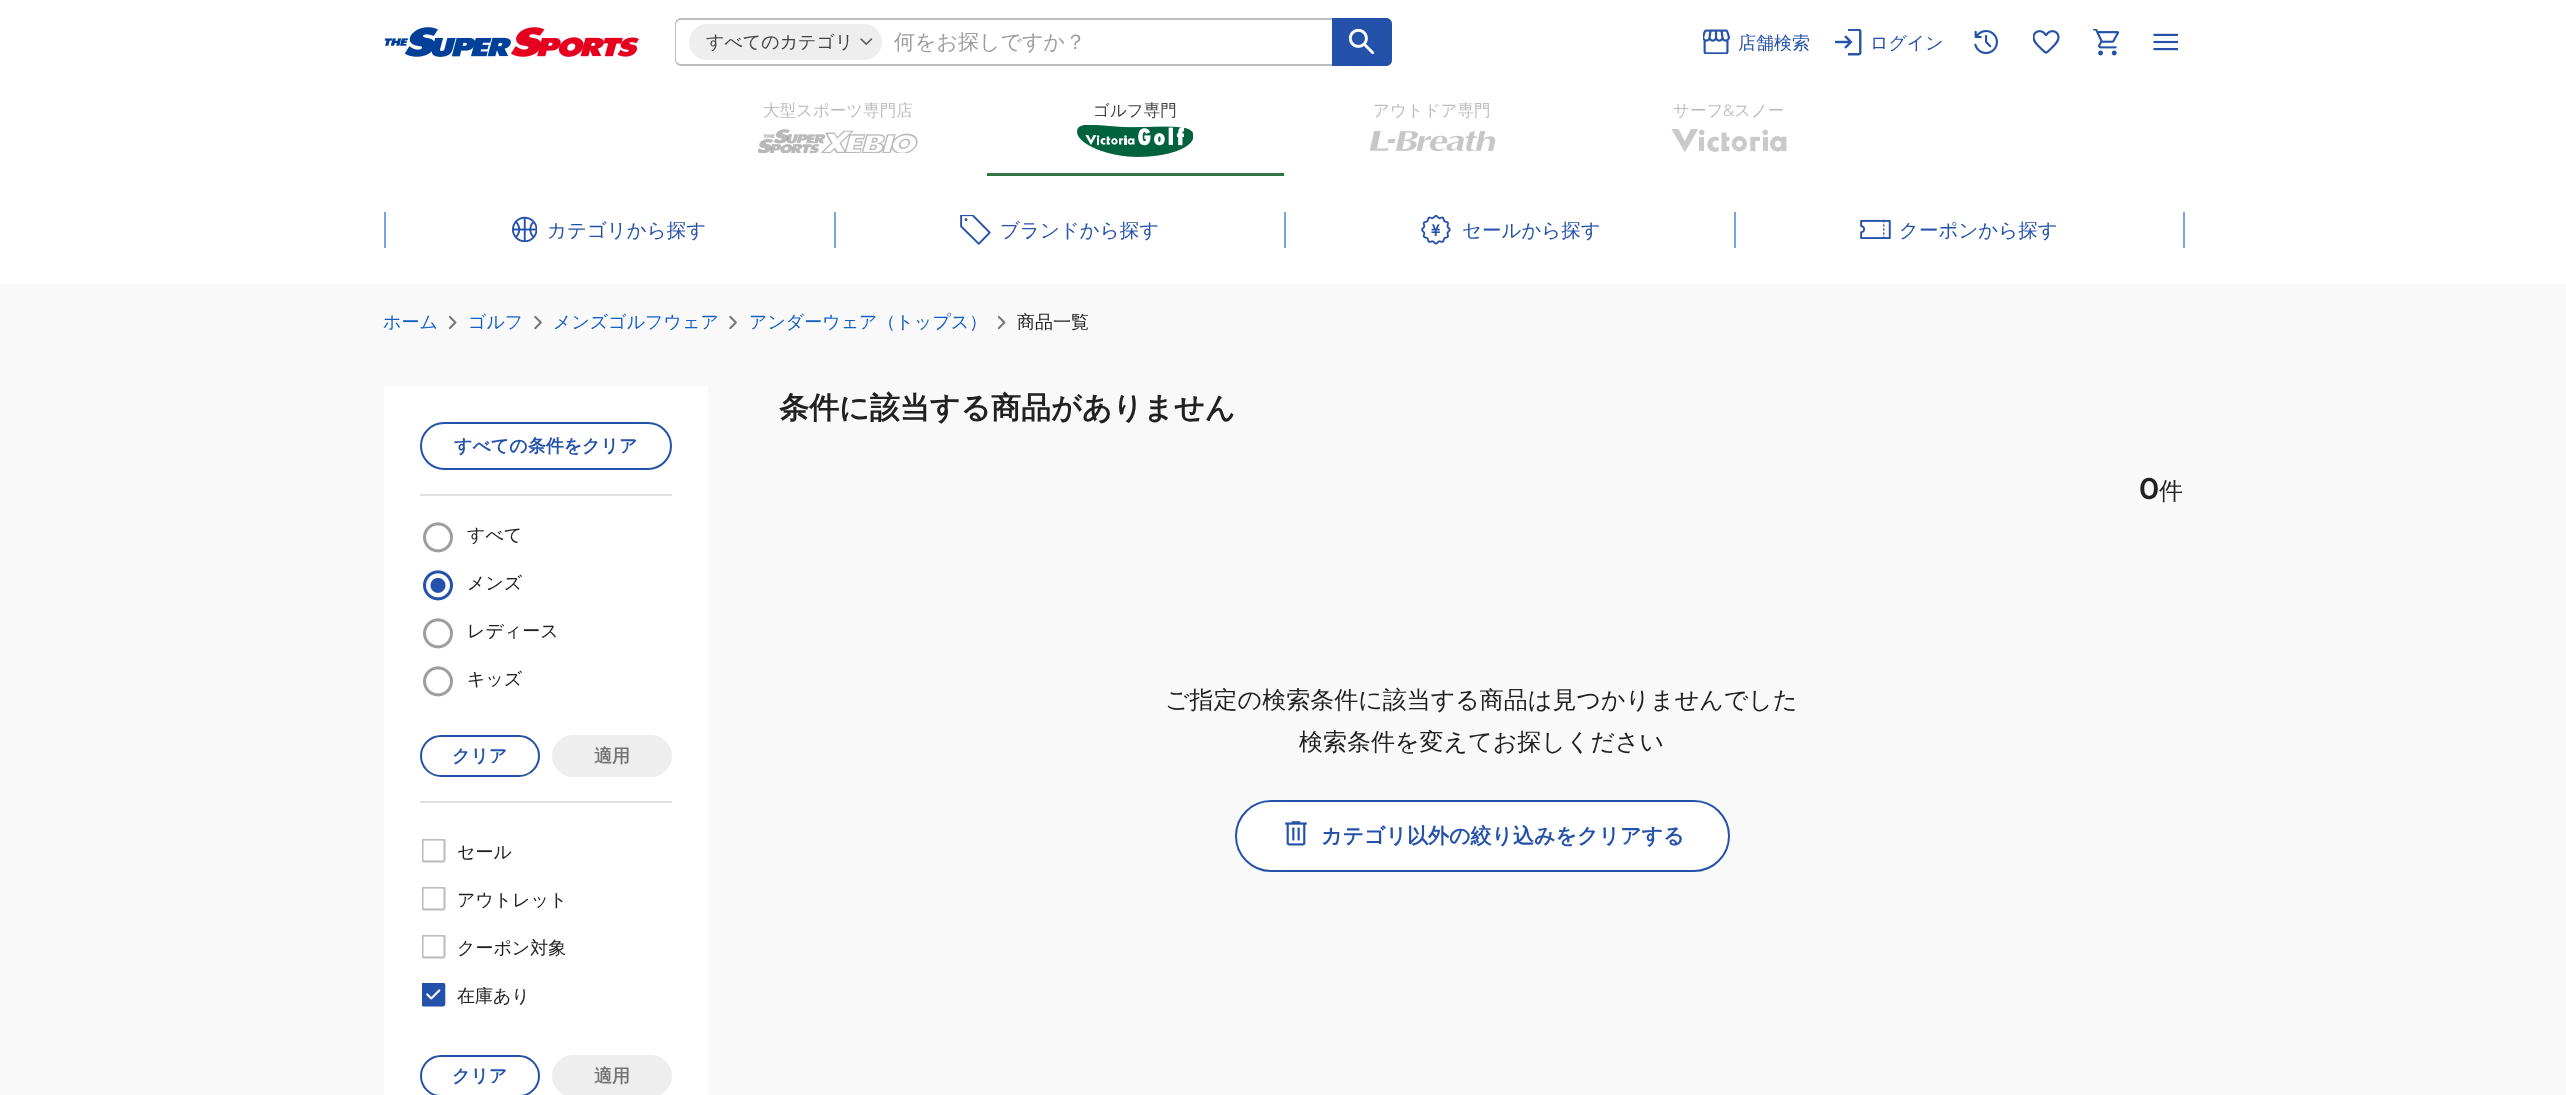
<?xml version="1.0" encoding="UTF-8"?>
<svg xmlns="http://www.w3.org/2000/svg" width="2566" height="1095">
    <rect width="100%" height="100%" fill="#FFFFFF"/>
    <image x="384" y="27" width="255" height="30" href="img_01.png"/>
    <path d="M 681 18 H 1332 V 66 H 681 C 678 66 675 63 675 60 V 24 C 675 21 678 18 681 18 Z M 681 20 H 1332 V 64 H 681 C 679 64 676 62 676 60 V 24 C 676 22 679 20 681 20 Z" fill="#BDBDBD" fill-rule="evenodd"/>
    <rect x="689" y="24" width="193" height="36" rx="18" fill="#EEEEEE"/>
    <text x="706" y="48" font-family="WenQuanYi Zen Hei" font-size="18" font-weight="500" fill="#424242">すべてのカテゴリ</text>
    <image x="860" y="38" width="13" height="7" href="img_02.png"/>
    <text x="894" y="49" font-family="WenQuanYi Zen Hei" font-size="21" font-weight="500" fill="#9E9E9E">何をお探しですか？</text>
    <path d="M 1332 18 H 1386 C 1389.5 18 1392 20.5 1392 24 V 60 C 1392 63.5 1389.5 66 1386 66 H 1332 Z" fill="#2452AA"/>
    <image x="1349" y="29" width="25" height="25" href="img_03.png"/>
    <image x="1703" y="29" width="27" height="25" href="img_04.png"/>
    <text x="1738" y="49" font-family="WenQuanYi Zen Hei" font-size="18" font-weight="500" fill="#2452AA">店舗検索</text>
    <image x="1835" y="29" width="27" height="27" href="img_05.png"/>
    <text x="1870" y="49" font-family="WenQuanYi Zen Hei" font-size="18" font-weight="500" fill="#2452AA">ログイン</text>
    <image x="1974" y="30" width="24" height="24" href="img_06.png"/>
    <image x="2033" y="30" width="27" height="24" href="img_07.png"/>
    <image x="2093" y="29" width="27" height="27" href="img_08.png"/>
    <image x="2153" y="33" width="25" height="18" href="img_09.png"/>
    <text x="763" y="116" font-family="WenQuanYi Zen Hei" font-size="16.5" font-weight="500" fill="#BDBDBD">大型スポーツ専門店</text>
    <image x="758" y="129" width="160" height="24" href="img_10.png"/>
    <rect x="987" y="173" width="297" height="3" fill="#337443"/>
    <text x="1093" y="116" font-family="WenQuanYi Zen Hei" font-size="16.5" font-weight="500" fill="#424242">ゴルフ専門</text>
    <image x="1077" y="125" width="116" height="32" href="img_11.png"/>
    <text x="1373" y="116" font-family="WenQuanYi Zen Hei" font-size="16.5" font-weight="500" fill="#BDBDBD">アウトドア専門</text>
    <image x="1370" y="131" width="126" height="21" href="img_12.png"/>
    <text x="1673" y="116" font-family="WenQuanYi Zen Hei" font-size="16.5" font-weight="500" fill="#BDBDBD">サーフ</text>
    <text x="1723" y="116" font-family="Montserrat" font-size="16.5" fill="#BDBDBD">&amp;</text>
    <text x="1734" y="116" font-family="WenQuanYi Zen Hei" font-size="16.5" font-weight="500" fill="#BDBDBD">スノー</text>
    <image x="1671" y="129" width="116" height="23" href="img_13.png"/>
    <rect x="384" y="212" width="2" height="36" fill="#79A2E1"/>
    <image x="512" y="216" width="25" height="26" href="img_14.png"/>
    <text x="547" y="237" font-family="WenQuanYi Zen Hei" font-size="19.5" font-weight="500" fill="#2452AA">カテゴリから探す</text>
    <rect x="834" y="212" width="2" height="36" fill="#79A2E1"/>
    <image x="960" y="215" width="31" height="30" href="img_15.png"/>
    <text x="1000" y="237" font-family="WenQuanYi Zen Hei" font-size="19.5" font-weight="500" fill="#2452AA">ブランドから探す</text>
    <rect x="1284" y="212" width="2" height="36" fill="#79A2E1"/>
    <image x="1421" y="215" width="30" height="30" href="img_16.png"/>
    <text x="1462" y="237" font-family="WenQuanYi Zen Hei" font-size="19.5" font-weight="500" fill="#2452AA">セールから探す</text>
    <rect x="2183" y="212" width="2" height="36" fill="#79A2E1"/>
    <rect x="1734" y="212" width="2" height="36" fill="#79A2E1"/>
    <image x="1860" y="219" width="31" height="20" href="img_17.png"/>
    <text x="1899" y="237" font-family="WenQuanYi Zen Hei" font-size="19.5" font-weight="500" fill="#2452AA">クーポンから探す</text>
    <rect x="0" y="284" width="2566" height="811" fill="#F9F9F9"/>
    <text x="383" y="328" font-family="WenQuanYi Zen Hei" font-size="18" font-weight="500" fill="#1560C5">ホーム</text>
    <image x="449" y="315" width="8" height="15" href="img_18.png"/>
    <text x="468" y="328" font-family="WenQuanYi Zen Hei" font-size="18" font-weight="500" fill="#1560C5">ゴルフ</text>
    <image x="534" y="315" width="8" height="15" href="img_19.png"/>
    <text x="553" y="328" font-family="WenQuanYi Zen Hei" font-size="18" font-weight="500" fill="#1560C5">メンズゴルフウェア</text>
    <image x="729" y="315" width="8" height="15" href="img_19.png"/>
    <text x="749" y="328" font-family="WenQuanYi Zen Hei" font-size="18" font-weight="500" fill="#1560C5">アンダーウェア（トップス）</text>
    <image x="998" y="315" width="8" height="15" href="img_18.png"/>
    <text x="1017" y="328" font-family="WenQuanYi Zen Hei" font-size="18" font-weight="500" fill="#212121">商品一覧</text>
    <rect x="384" y="386" width="324" height="709" fill="#FFFFFF"/>
    <rect x="421" y="423" width="250" height="46" rx="23" fill="none" stroke="#2452AA" stroke-width="2"/>
    <text x="454" y="452" font-family="WenQuanYi Zen Hei" font-size="18" font-weight="700" fill="#2452AA">すべての条件をクリア</text>
    <rect x="420" y="494" width="252" height="2" fill="#E0E0E0"/>
    <image x="423" y="522" width="30" height="31" href="img_20.png"/>
    <text x="467" y="541" font-family="WenQuanYi Zen Hei" font-size="18" font-weight="500" fill="#212121">すべて</text>
    <image x="423" y="570" width="30" height="31" href="img_21.png"/>
    <text x="467" y="589" font-family="WenQuanYi Zen Hei" font-size="18" font-weight="500" fill="#212121">メンズ</text>
    <image x="423" y="618" width="30" height="31" href="img_20.png"/>
    <text x="467" y="637" font-family="WenQuanYi Zen Hei" font-size="18" font-weight="500" fill="#212121">レディース</text>
    <image x="423" y="666" width="30" height="31" href="img_20.png"/>
    <text x="467" y="685" font-family="WenQuanYi Zen Hei" font-size="18" font-weight="500" fill="#212121">キッズ</text>
    <rect x="421" y="736" width="118" height="40" rx="20" fill="none" stroke="#2452AA" stroke-width="2"/>
    <text x="452" y="762" font-family="WenQuanYi Zen Hei" font-size="18" font-weight="700" fill="#2452AA">クリア</text>
    <rect x="552" y="735" width="120" height="42" rx="21" fill="#EEEEEE"/>
    <text x="594" y="762" font-family="WenQuanYi Zen Hei" font-size="18" font-weight="700" fill="#757575">適用</text>
    <rect x="420" y="801" width="252" height="2" fill="#E0E0E0"/>
    <image x="422" y="839" width="24" height="24" href="img_22.png"/>
    <text x="457" y="858" font-family="WenQuanYi Zen Hei" font-size="18" font-weight="500" fill="#212121">セール</text>
    <image x="422" y="887" width="24" height="24" href="img_22.png"/>
    <text x="457" y="906" font-family="WenQuanYi Zen Hei" font-size="18" font-weight="500" fill="#212121">アウトレット</text>
    <image x="422" y="935" width="24" height="24" href="img_22.png"/>
    <text x="457" y="954" font-family="WenQuanYi Zen Hei" font-size="18" font-weight="500" fill="#212121">クーポン対象</text>
    <image x="422" y="983" width="24" height="24" href="img_23.png"/>
    <text x="457" y="1002" font-family="WenQuanYi Zen Hei" font-size="18" font-weight="500" fill="#212121">在庫あり</text>
    <rect x="421" y="1056" width="118" height="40" rx="20" fill="none" stroke="#2452AA" stroke-width="2"/>
    <text x="452" y="1082" font-family="WenQuanYi Zen Hei" font-size="18" font-weight="700" fill="#2452AA">クリア</text>
    <rect x="552" y="1055" width="120" height="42" rx="21" fill="#EEEEEE"/>
    <text x="594" y="1082" font-family="WenQuanYi Zen Hei" font-size="18" font-weight="700" fill="#757575">適用</text>
    <text x="779" y="418" font-family="WenQuanYi Zen Hei" font-size="30" font-weight="700" fill="#212121">条件に該当する商品がありません</text>
    <text x="2139" y="499" font-family="Montserrat" font-size="30" font-weight="600" fill="#212121">0</text>
    <text x="2159" y="499" font-family="WenQuanYi Zen Hei" font-size="24" font-weight="500" fill="#212121">件</text>
    <text x="1165" y="708" font-family="WenQuanYi Zen Hei" font-size="24" font-weight="500" fill="#212121">ご指定の検索条件に該当する商品は見つかりませんでした</text>
    <text x="1299" y="750" font-family="WenQuanYi Zen Hei" font-size="24" font-weight="500" fill="#212121">検索条件を変えてお探しください</text>
    <rect x="1236" y="801" width="493" height="70" rx="35" fill="#FFFFFF" stroke="#2452AA" stroke-width="2"/>
    <image x="1285" y="821" width="22" height="25" href="img_24.png"/>
    <text x="1321" y="843" font-family="WenQuanYi Zen Hei" font-size="21" font-weight="700" fill="#2452AA">カテゴリ以外の絞り込みをクリアする</text>
</svg>
